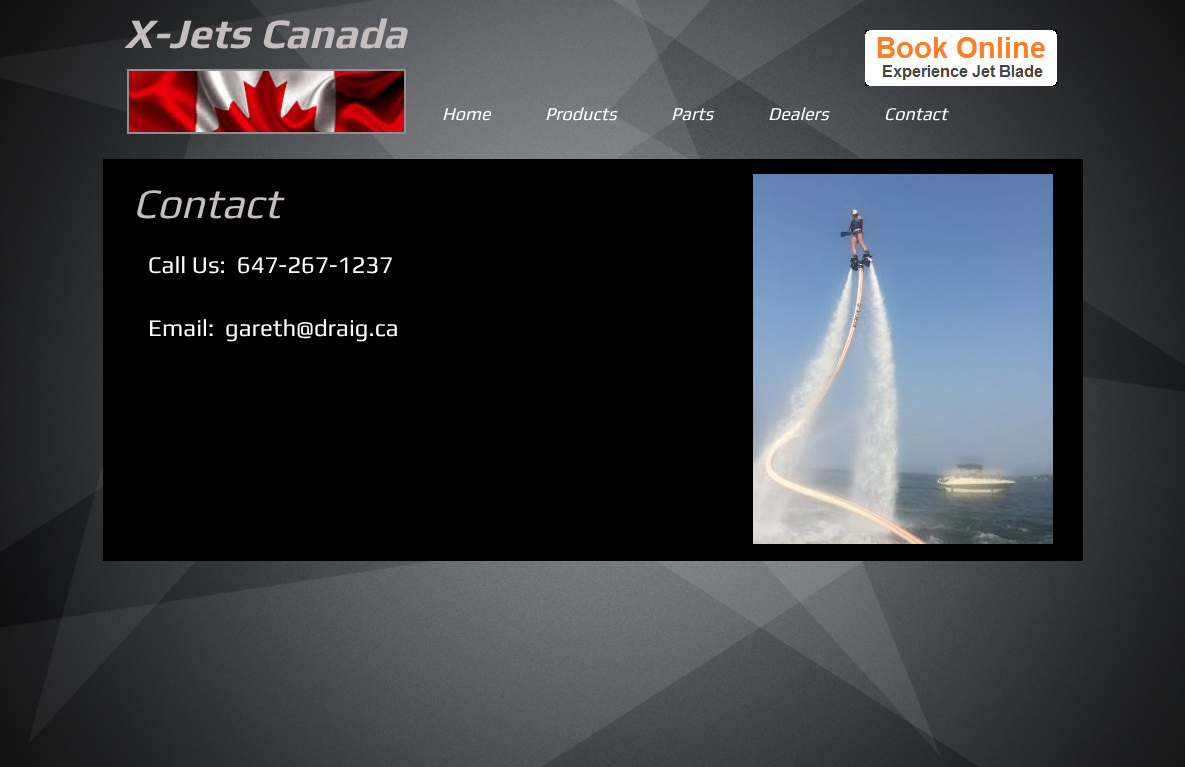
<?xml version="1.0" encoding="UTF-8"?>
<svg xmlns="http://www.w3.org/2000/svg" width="1185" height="767">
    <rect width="100%" height="100%" fill="#000000"/>
    <image x="0" y="0" width="1185" height="767" href="img_01.png"/>
    <text x="124" y="48" font-family="Play" font-size="42" font-weight="700" font-style="italic" fill="#C4BEBE">X-Jets Canada</text>
    <image x="865" y="30" width="192" height="56" href="img_02.png"/>
    <rect x="127" y="69" width="279" height="65" fill="#938E8E"/>
    <image x="129" y="71" width="275" height="61" href="img_03.png"/>
    <text x="442" y="120" font-family="Play" font-size="18" font-style="italic" fill="#FFFFFF">Home</text>
    <text x="545" y="120" font-family="Play" font-size="18" font-style="italic" fill="#FFFFFF">Products</text>
    <text x="671" y="120" font-family="Play" font-size="18" font-style="italic" fill="#FFFFFF">Parts</text>
    <text x="768" y="120" font-family="Play" font-size="18" font-style="italic" fill="#FFFFFF">Dealers</text>
    <text x="884" y="120" font-family="Play" font-size="18" font-style="italic" fill="#FFFFFF">Contact</text>
    <rect x="103" y="159" width="980" height="402" fill="#000000"/>
    <text x="133" y="218" font-family="Play" font-size="42" font-style="italic" fill="#C4BEBE">Contact</text>
    <text x="148" y="273" font-family="Play" font-size="24" fill="#FFFFFF" xml:space="preserve">Call Us:  647-267-1237</text>
    <text x="148" y="336" font-family="Play" font-size="24" fill="#FFFFFF">Email:</text>
    <text x="225" y="336" font-family="Play" font-size="24" fill="#FFFFFF">gareth@draig.ca</text>
    <image x="753" y="174" width="300" height="370" href="img_04.png"/>
</svg>
